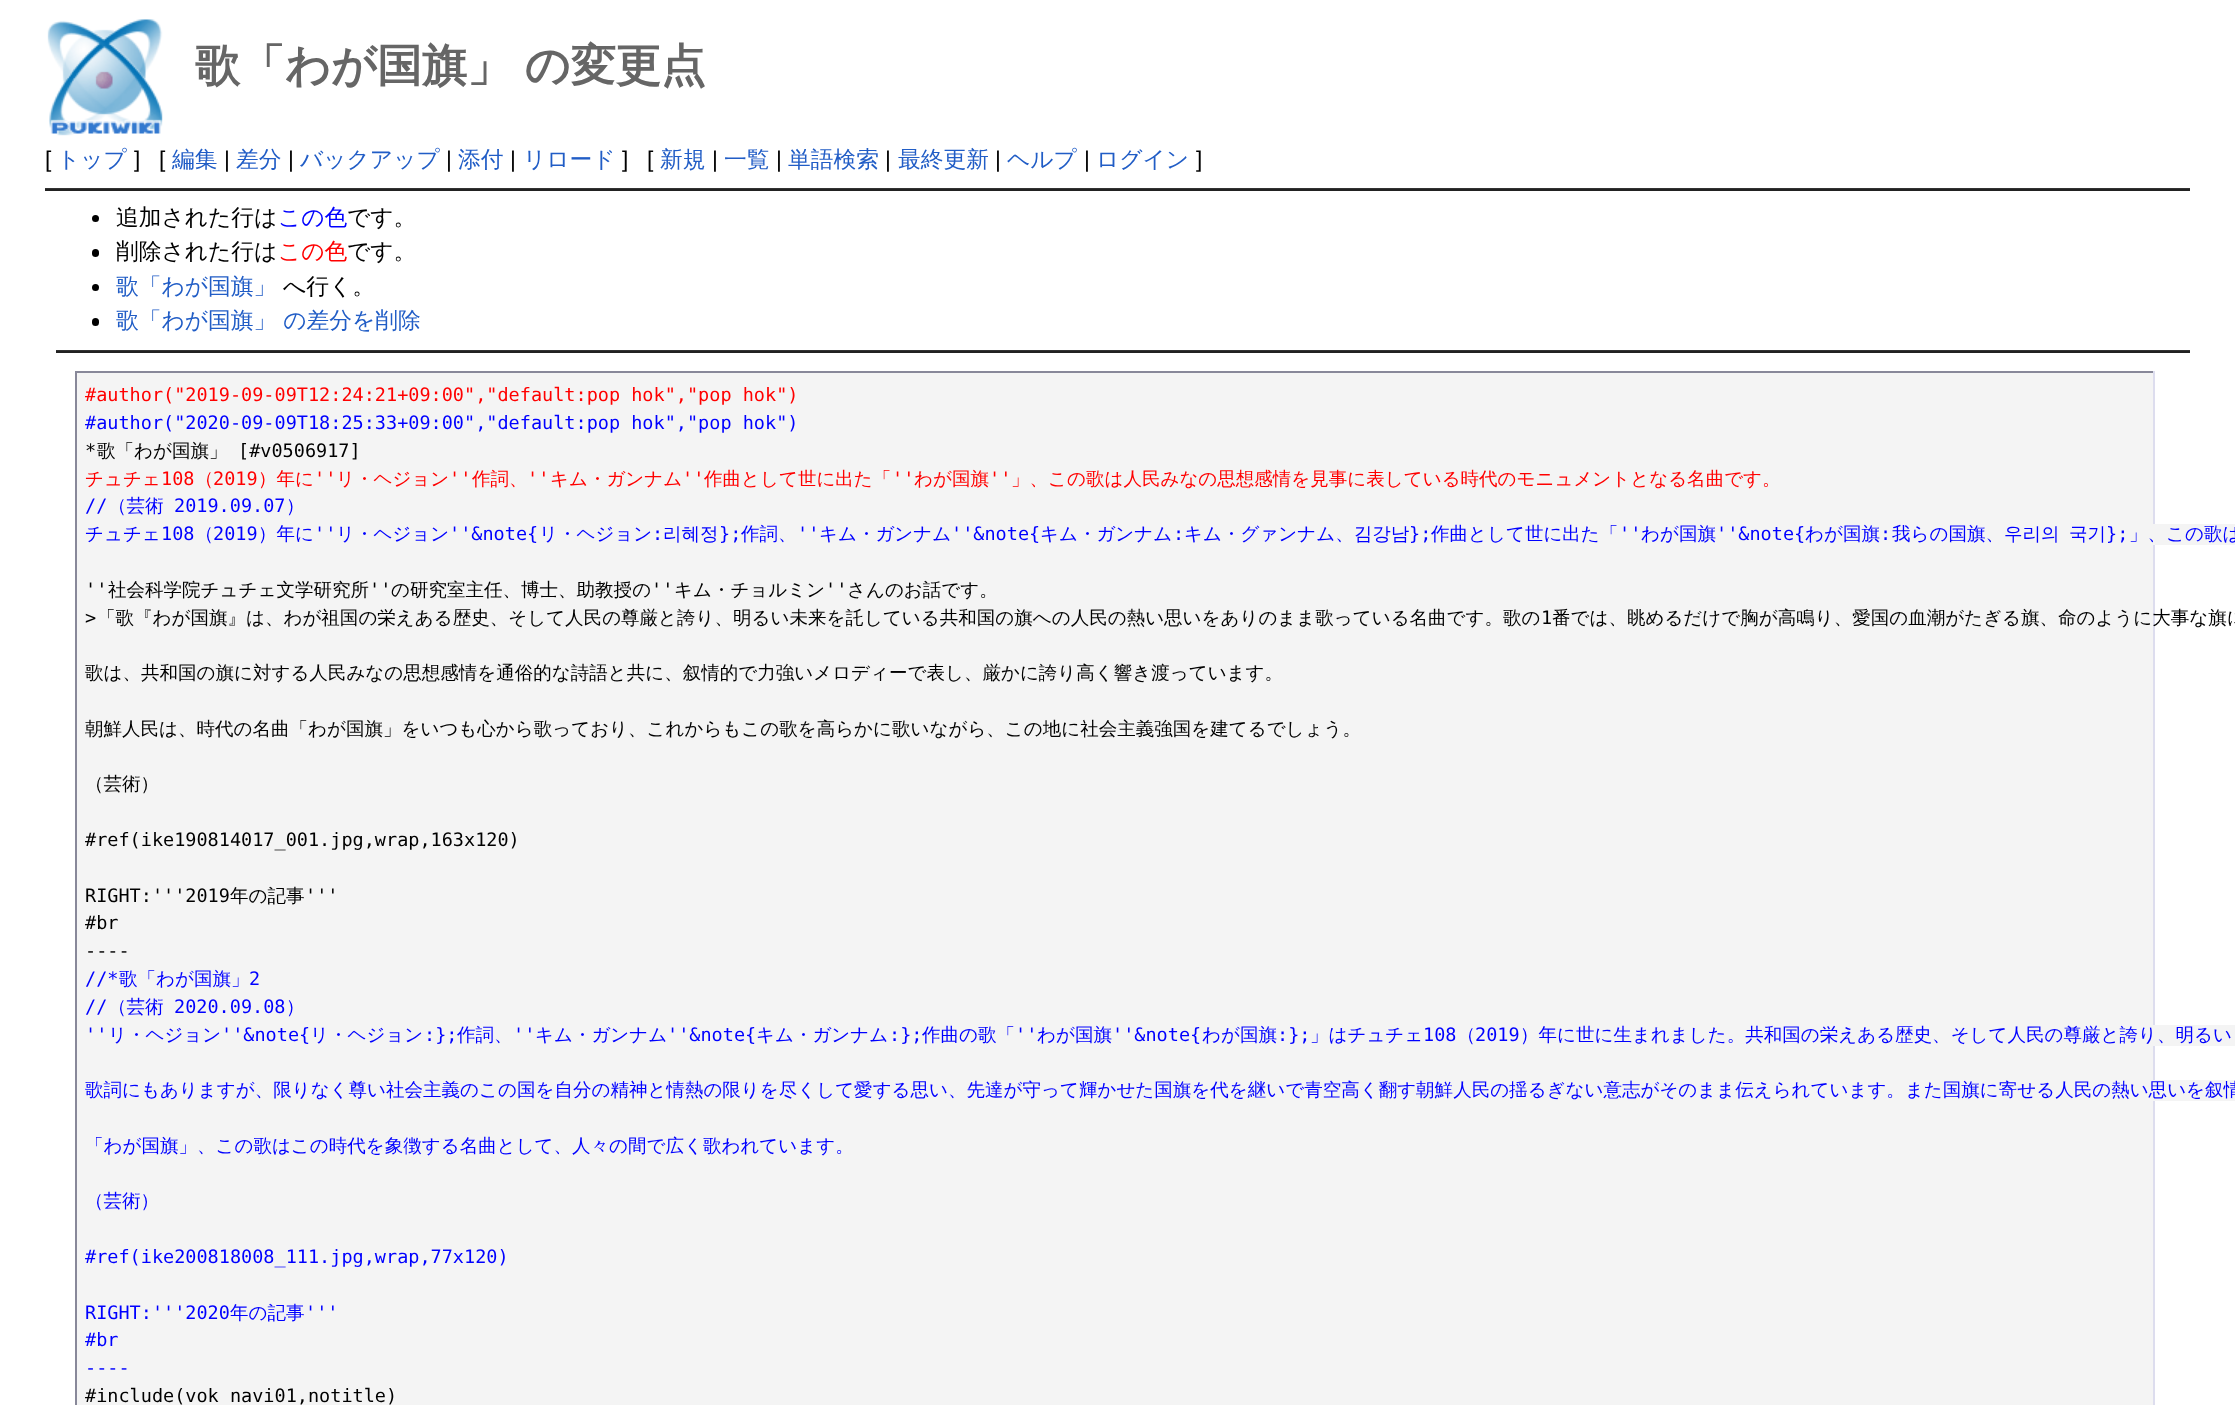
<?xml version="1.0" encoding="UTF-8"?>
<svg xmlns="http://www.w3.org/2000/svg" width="2235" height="1405">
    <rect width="100%" height="100%" fill="#FFFFFF"/>
    <image x="47" y="19" width="116" height="117" href="img_01.png"/>
    <text x="195" y="81" word-spacing="-1" font-family="WenQuanYi Zen Hei" font-size="45" font-weight="700" fill="#666666">歌「わが国旗」 の変更点</text>
    <text x="45" y="167" font-family="Liberation Sans" font-size="22.75" fill="#000000">[</text>
    <text x="57" y="167" font-family="WenQuanYi Zen Hei" font-size="22.75" font-weight="500" fill="#215DC6">トップ</text>
    <text x="134" y="167" font-family="Liberation Sans" font-size="22.75" fill="#000000">]</text>
    <text x="159" y="167" font-family="Liberation Sans" font-size="22.75" fill="#000000">[</text>
    <text x="172" y="167" font-family="WenQuanYi Zen Hei" font-size="22.75" font-weight="500" fill="#215DC6">編集</text>
    <text x="224" y="167" font-family="Liberation Sans" font-size="22.75" fill="#000000">|</text>
    <text x="236" y="167" font-family="WenQuanYi Zen Hei" font-size="22.75" font-weight="500" fill="#215DC6">差分</text>
    <text x="288" y="167" font-family="Liberation Sans" font-size="22.75" fill="#000000">|</text>
    <text x="300" y="167" font-family="WenQuanYi Zen Hei" font-size="22.75" font-weight="500" fill="#215DC6">バックアップ</text>
    <text x="446" y="167" font-family="Liberation Sans" font-size="22.75" fill="#000000">|</text>
    <text x="458" y="167" font-family="WenQuanYi Zen Hei" font-size="22.75" font-weight="500" fill="#215DC6">添付</text>
    <text x="510" y="167" font-family="Liberation Sans" font-size="22.75" fill="#000000">|</text>
    <text x="523" y="167" font-family="WenQuanYi Zen Hei" font-size="22.75" font-weight="500" fill="#215DC6">リロード</text>
    <text x="622" y="167" font-family="Liberation Sans" font-size="22.75" fill="#000000">]</text>
    <text x="647" y="167" font-family="Liberation Sans" font-size="22.75" fill="#000000">[</text>
    <text x="660" y="167" font-family="WenQuanYi Zen Hei" font-size="22.75" font-weight="500" fill="#215DC6">新規</text>
    <text x="712" y="167" font-family="Liberation Sans" font-size="22.75" fill="#000000">|</text>
    <text x="724" y="167" font-family="WenQuanYi Zen Hei" font-size="22.75" font-weight="500" fill="#215DC6">一覧</text>
    <text x="776" y="167" font-family="Liberation Sans" font-size="22.75" fill="#000000">|</text>
    <text x="788" y="167" font-family="WenQuanYi Zen Hei" font-size="22.75" font-weight="500" fill="#215DC6">単語検索</text>
    <text x="885" y="167" font-family="Liberation Sans" font-size="22.75" fill="#000000">|</text>
    <text x="898" y="167" font-family="WenQuanYi Zen Hei" font-size="22.75" font-weight="500" fill="#215DC6">最終更新</text>
    <text x="995" y="167" font-family="Liberation Sans" font-size="22.75" fill="#000000">|</text>
    <text x="1007" y="167" font-family="WenQuanYi Zen Hei" font-size="22.75" font-weight="500" fill="#215DC6">ヘルプ</text>
    <text x="1084" y="167" font-family="Liberation Sans" font-size="22.75" fill="#000000">|</text>
    <text x="1096" y="167" font-family="WenQuanYi Zen Hei" font-size="22.75" font-weight="500" fill="#215DC6">ログイン</text>
    <text x="1196" y="167" font-family="Liberation Sans" font-size="22.75" fill="#000000">]</text>
    <rect x="45" y="188" width="2145" height="1" fill="#333333"/>
    <rect x="45" y="189" width="2145" height="2" fill="#222222"/>
    <circle cx="95.5" cy="218.5" r="3.5" fill="#000000"/>
    <text x="116" y="225" font-family="WenQuanYi Zen Hei" font-size="22.75" font-weight="500" fill="#000000">追加された行は</text>
    <text x="278" y="225" font-family="WenQuanYi Zen Hei" font-size="22.75" font-weight="500" fill="#0000FF">この色</text>
    <text x="347" y="225" font-family="WenQuanYi Zen Hei" font-size="22.75" font-weight="500" fill="#000000">です。</text>
    <rect x="92" y="249" width="7" height="8" rx="3.5" fill="#000000"/>
    <text x="116" y="259" font-family="WenQuanYi Zen Hei" font-size="22.75" font-weight="500" fill="#000000">削除された行は</text>
    <text x="278" y="259" font-family="WenQuanYi Zen Hei" font-size="22.75" font-weight="500" fill="#FF0000">この色</text>
    <text x="347" y="259" font-family="WenQuanYi Zen Hei" font-size="22.75" font-weight="500" fill="#000000">です。</text>
    <circle cx="95.5" cy="287.5" r="3.5" fill="#000000"/>
    <text x="116" y="294" font-family="WenQuanYi Zen Hei" font-size="22.75" font-weight="500" fill="#215DC6">歌「わが国旗」</text>
    <text x="283" y="294" font-family="WenQuanYi Zen Hei" font-size="22.75" font-weight="500" fill="#000000">へ行く。</text>
    <rect x="92" y="318" width="7" height="8" rx="3.5" fill="#000000"/>
    <text x="116" y="328" font-family="WenQuanYi Zen Hei" font-size="22.75" font-weight="500" fill="#215DC6">歌「わが国旗」 の差分を削除</text>
    <rect x="56" y="350" width="2134" height="1" fill="#333333"/>
    <rect x="56" y="351" width="2134" height="2" fill="#222222"/>
    <rect x="77" y="373" width="2076" height="1032" fill="#F4F4F4"/>
    <rect x="75" y="371" width="2079" height="2" fill="#888899"/>
    <rect x="2153" y="371" width="2" height="1034" fill="#DDDDEE"/>
    <rect x="75" y="371" width="2" height="1034" fill="#888899"/>
    <text x="85" y="401" font-family="DejaVu Sans Mono" font-size="18.52" fill="#FF0000">#author("2019-09-09T12:24:21+09:00","default:pop hok","pop hok")</text>
    <text x="85" y="429" font-family="DejaVu Sans Mono" font-size="18.52" fill="#0000FF">#author("2020-09-09T18:25:33+09:00","default:pop hok","pop hok")</text>
    <text x="85" y="457" font-family="DejaVu Sans Mono" font-size="18.52" fill="#000000">*</text>
    <text x="97" y="457" font-family="WenQuanYi Zen Hei" font-size="18.52" font-weight="500" fill="#000000">歌「わが国旗」</text>
    <text x="238" y="457" font-family="DejaVu Sans Mono" font-size="18.52" fill="#000000">[#v0506917]</text>
    <text x="85" y="485" font-family="WenQuanYi Zen Hei" font-size="18.52" font-weight="500" fill="#FF0000">チュチェ</text>
    <text x="161" y="485" font-family="DejaVu Sans Mono" font-size="18.52" fill="#FF0000">108</text>
    <text x="195" y="485" font-family="WenQuanYi Zen Hei" font-size="18.52" font-weight="500" fill="#FF0000">（</text>
    <text x="213" y="485" font-family="DejaVu Sans Mono" font-size="18.52" fill="#FF0000">2019</text>
    <text x="258" y="485" font-family="WenQuanYi Zen Hei" font-size="18.52" font-weight="500" fill="#FF0000">）年に</text>
    <text x="314" y="485" font-family="DejaVu Sans Mono" font-size="18.52" fill="#FF0000">''</text>
    <text x="336" y="485" font-family="WenQuanYi Zen Hei" font-size="18.52" font-weight="500" fill="#FF0000">リ・ヘジョン</text>
    <text x="449" y="485" font-family="DejaVu Sans Mono" font-size="18.52" fill="#FF0000">''</text>
    <text x="472" y="485" font-family="WenQuanYi Zen Hei" font-size="18.52" font-weight="500" fill="#FF0000">作詞、</text>
    <text x="527" y="485" font-family="DejaVu Sans Mono" font-size="18.52" fill="#FF0000">''</text>
    <text x="550" y="485" font-family="WenQuanYi Zen Hei" font-size="18.52" font-weight="500" fill="#FF0000">キム・ガンナム</text>
    <text x="682" y="485" font-family="DejaVu Sans Mono" font-size="18.52" fill="#FF0000">''</text>
    <text x="704" y="485" font-family="WenQuanYi Zen Hei" font-size="18.52" font-weight="500" fill="#FF0000">作曲として世に出た「</text>
    <text x="892" y="485" font-family="DejaVu Sans Mono" font-size="18.52" fill="#FF0000">''</text>
    <text x="914" y="485" font-family="WenQuanYi Zen Hei" font-size="18.52" font-weight="500" fill="#FF0000">わが国旗</text>
    <text x="989" y="485" font-family="DejaVu Sans Mono" font-size="18.52" fill="#FF0000">''</text>
    <text x="1011" y="485" font-family="WenQuanYi Zen Hei" font-size="18.52" font-weight="500" fill="#FF0000">」、この歌は人民みなの思想感情を見事に表している時代のモニュメントとなる名曲です。</text>
    <text x="85" y="512" font-family="DejaVu Sans Mono" font-size="18.52" fill="#0000FF">//</text>
    <text x="108" y="512" font-family="WenQuanYi Zen Hei" font-size="18.52" font-weight="500" fill="#0000FF">（芸術</text>
    <text x="174" y="512" font-family="DejaVu Sans Mono" font-size="18.52" fill="#0000FF">2019.09.07</text>
    <text x="286" y="512" font-family="WenQuanYi Zen Hei" font-size="18.52" font-weight="500" fill="#0000FF">）</text>
    <text x="85" y="540" font-family="WenQuanYi Zen Hei" font-size="18.52" font-weight="500" fill="#0000FF">チュチェ</text>
    <text x="161" y="540" font-family="DejaVu Sans Mono" font-size="18.52" fill="#0000FF">108</text>
    <text x="195" y="540" font-family="WenQuanYi Zen Hei" font-size="18.52" font-weight="500" fill="#0000FF">（</text>
    <text x="213" y="540" font-family="DejaVu Sans Mono" font-size="18.52" fill="#0000FF">2019</text>
    <text x="258" y="540" font-family="WenQuanYi Zen Hei" font-size="18.52" font-weight="500" fill="#0000FF">）年に</text>
    <text x="314" y="540" font-family="DejaVu Sans Mono" font-size="18.52" fill="#0000FF">''</text>
    <text x="336" y="540" font-family="WenQuanYi Zen Hei" font-size="18.52" font-weight="500" fill="#0000FF">リ・ヘジョン</text>
    <text x="449" y="540" font-family="DejaVu Sans Mono" font-size="18.52" fill="#0000FF">''&amp;note{</text>
    <text x="539" y="540" font-family="WenQuanYi Zen Hei" font-size="18.52" font-weight="500" fill="#0000FF">リ・ヘジョン</text>
    <text x="652" y="540" font-family="DejaVu Sans Mono" font-size="18.52" fill="#0000FF">:</text>
    <text x="663" y="540" font-family="WenQuanYi Zen Hei" font-size="18.52" font-weight="500" fill="#0000FF">리혜정</text>
    <text x="719" y="540" font-family="DejaVu Sans Mono" font-size="18.52" fill="#0000FF">};</text>
    <text x="741" y="540" font-family="WenQuanYi Zen Hei" font-size="18.52" font-weight="500" fill="#0000FF">作詞、</text>
    <text x="797" y="540" font-family="DejaVu Sans Mono" font-size="18.52" fill="#0000FF">''</text>
    <text x="819" y="540" font-family="WenQuanYi Zen Hei" font-size="18.52" font-weight="500" fill="#0000FF">キム・ガンナム</text>
    <text x="951" y="540" font-family="DejaVu Sans Mono" font-size="18.52" fill="#0000FF">''&amp;note{</text>
    <text x="1040" y="540" font-family="WenQuanYi Zen Hei" font-size="18.52" font-weight="500" fill="#0000FF">キム・ガンナム</text>
    <text x="1173" y="540" font-family="DejaVu Sans Mono" font-size="18.52" fill="#0000FF">:</text>
    <text x="1184" y="540" font-family="WenQuanYi Zen Hei" font-size="18.52" font-weight="500" fill="#0000FF">キム・グァンナム、김강남</text>
    <text x="1409" y="540" font-family="DejaVu Sans Mono" font-size="18.52" fill="#0000FF">};</text>
    <text x="1431" y="540" font-family="WenQuanYi Zen Hei" font-size="18.52" font-weight="500" fill="#0000FF">作曲として世に出た「</text>
    <text x="1619" y="540" font-family="DejaVu Sans Mono" font-size="18.52" fill="#0000FF">''</text>
    <text x="1641" y="540" font-family="WenQuanYi Zen Hei" font-size="18.52" font-weight="500" fill="#0000FF">わが国旗</text>
    <text x="1716" y="540" font-family="DejaVu Sans Mono" font-size="18.52" fill="#0000FF">''&amp;note{</text>
    <text x="1805" y="540" font-family="WenQuanYi Zen Hei" font-size="18.52" font-weight="500" fill="#0000FF">わが国旗</text>
    <text x="1880" y="540" font-family="DejaVu Sans Mono" font-size="18.52" fill="#0000FF">:</text>
    <text x="1892" y="540" word-spacing="4" font-family="WenQuanYi Zen Hei" font-size="18.52" font-weight="500" fill="#0000FF">我らの国旗、우리의 국기</text>
    <text x="2106" y="540" font-family="DejaVu Sans Mono" font-size="18.52" fill="#0000FF">};</text>
    <rect x="2153" y="524" width="82" height="21" fill="#F4F4F4"/>
    <text x="2129" y="540" font-family="WenQuanYi Zen Hei" font-size="18.52" font-weight="500" fill="#0000FF">」、この歌は</text>
    <text x="85" y="596" font-family="DejaVu Sans Mono" font-size="18.52" fill="#000000">''</text>
    <text x="108" y="596" font-family="WenQuanYi Zen Hei" font-size="18.52" font-weight="500" fill="#000000">社会科学院チュチェ文学研究所</text>
    <text x="369" y="596" font-family="DejaVu Sans Mono" font-size="18.52" fill="#000000">''</text>
    <text x="391" y="596" font-family="WenQuanYi Zen Hei" font-size="18.52" font-weight="500" fill="#000000">の研究室主任、博士、助教授の</text>
    <text x="651" y="596" font-family="DejaVu Sans Mono" font-size="18.52" fill="#000000">''</text>
    <text x="674" y="596" font-family="WenQuanYi Zen Hei" font-size="18.52" font-weight="500" fill="#000000">キム・チョルミン</text>
    <text x="825" y="596" font-family="DejaVu Sans Mono" font-size="18.52" fill="#000000">''</text>
    <text x="847" y="596" font-family="WenQuanYi Zen Hei" font-size="18.52" font-weight="500" fill="#000000">さんのお話です。</text>
    <text x="85" y="624" font-family="DejaVu Sans Mono" font-size="18.52" fill="#000000">&gt;</text>
    <text x="97" y="624" font-family="WenQuanYi Zen Hei" font-size="18.52" font-weight="500" fill="#000000">「歌『わが国旗』は、わが祖国の栄えある歴史、そして人民の尊厳と誇り、明るい未来を託している共和国の旗への人民の熱い思いをありのまま歌っている名曲です。歌の</text>
    <text x="1541" y="624" font-family="DejaVu Sans Mono" font-size="18.52" fill="#000000">1</text>
    <text x="1552" y="624" font-family="WenQuanYi Zen Hei" font-size="18.52" font-weight="500" fill="#000000">番では、眺めるだけで胸が高鳴り、愛国の血潮がたぎる旗、命のように大事な旗に</text>
    <text x="85" y="679" font-family="WenQuanYi Zen Hei" font-size="18.52" font-weight="500" fill="#000000">歌は、共和国の旗に対する人民みなの思想感情を通俗的な詩語と共に、叙情的で力強いメロディーで表し、厳かに誇り高く響き渡っています。</text>
    <text x="85" y="735" font-family="WenQuanYi Zen Hei" font-size="18.52" font-weight="500" fill="#000000">朝鮮人民は、時代の名曲「わが国旗」をいつも心から歌っており、これからもこの歌を高らかに歌いながら、この地に社会主義強国を建てるでしょう。</text>
    <text x="85" y="790" font-family="WenQuanYi Zen Hei" font-size="18.52" font-weight="500" fill="#000000">（芸術）</text>
    <text x="85" y="846" font-family="DejaVu Sans Mono" font-size="18.52" fill="#000000">#ref(ike190814017_001.jpg,wrap,163x120)</text>
    <text x="85" y="902" font-family="DejaVu Sans Mono" font-size="18.52" fill="#000000">RIGHT:'''2019</text>
    <text x="230" y="902" font-family="WenQuanYi Zen Hei" font-size="18.52" font-weight="500" fill="#000000">年の記事</text>
    <text x="305" y="902" font-family="DejaVu Sans Mono" font-size="18.52" fill="#000000">'''</text>
    <text font-family="DejaVu Sans Mono" font-size="18.52" fill="#000000">
        <tspan x="85" y="929">#br</tspan>
        <tspan x="85" y="957">----</tspan>
    </text>
    <text x="85" y="985" font-family="DejaVu Sans Mono" font-size="18.52" fill="#0000FF">//*</text>
    <text x="119" y="985" font-family="WenQuanYi Zen Hei" font-size="18.52" font-weight="500" fill="#0000FF">歌「わが国旗」</text>
    <text x="249" y="985" font-family="DejaVu Sans Mono" font-size="18.52" fill="#0000FF">2</text>
    <text x="85" y="1013" font-family="DejaVu Sans Mono" font-size="18.52" fill="#0000FF">//</text>
    <text x="108" y="1013" font-family="WenQuanYi Zen Hei" font-size="18.52" font-weight="500" fill="#0000FF">（芸術</text>
    <text x="174" y="1013" font-family="DejaVu Sans Mono" font-size="18.52" fill="#0000FF">2020.09.08</text>
    <text x="286" y="1013" font-family="WenQuanYi Zen Hei" font-size="18.52" font-weight="500" fill="#0000FF">）</text>
    <text x="85" y="1041" font-family="DejaVu Sans Mono" font-size="18.52" fill="#0000FF">''</text>
    <text x="108" y="1041" font-family="WenQuanYi Zen Hei" font-size="18.52" font-weight="500" fill="#0000FF">リ・ヘジョン</text>
    <text x="221" y="1041" font-family="DejaVu Sans Mono" font-size="18.52" fill="#0000FF">''&amp;note{</text>
    <text x="310" y="1041" font-family="WenQuanYi Zen Hei" font-size="18.52" font-weight="500" fill="#0000FF">リ・ヘジョン</text>
    <text x="424" y="1041" font-family="DejaVu Sans Mono" font-size="18.52" fill="#0000FF">:};</text>
    <text x="457" y="1041" font-family="WenQuanYi Zen Hei" font-size="18.52" font-weight="500" fill="#0000FF">作詞、</text>
    <text x="513" y="1041" font-family="DejaVu Sans Mono" font-size="18.52" fill="#0000FF">''</text>
    <text x="535" y="1041" font-family="WenQuanYi Zen Hei" font-size="18.52" font-weight="500" fill="#0000FF">キム・ガンナム</text>
    <text x="667" y="1041" font-family="DejaVu Sans Mono" font-size="18.52" fill="#0000FF">''&amp;note{</text>
    <text x="756" y="1041" font-family="WenQuanYi Zen Hei" font-size="18.52" font-weight="500" fill="#0000FF">キム・ガンナム</text>
    <text x="889" y="1041" font-family="DejaVu Sans Mono" font-size="18.52" fill="#0000FF">:};</text>
    <text x="922" y="1041" font-family="WenQuanYi Zen Hei" font-size="18.52" font-weight="500" fill="#0000FF">作曲の歌「</text>
    <text x="1015" y="1041" font-family="DejaVu Sans Mono" font-size="18.52" fill="#0000FF">''</text>
    <text x="1037" y="1041" font-family="WenQuanYi Zen Hei" font-size="18.52" font-weight="500" fill="#0000FF">わが国旗</text>
    <text x="1112" y="1041" font-family="DejaVu Sans Mono" font-size="18.52" fill="#0000FF">''&amp;note{</text>
    <text x="1202" y="1041" font-family="WenQuanYi Zen Hei" font-size="18.52" font-weight="500" fill="#0000FF">わが国旗</text>
    <text x="1277" y="1041" font-family="DejaVu Sans Mono" font-size="18.52" fill="#0000FF">:};</text>
    <text x="1310" y="1041" font-family="WenQuanYi Zen Hei" font-size="18.52" font-weight="500" fill="#0000FF">」はチュチェ</text>
    <text x="1423" y="1041" font-family="DejaVu Sans Mono" font-size="18.52" fill="#0000FF">108</text>
    <text x="1457" y="1041" font-family="WenQuanYi Zen Hei" font-size="18.52" font-weight="500" fill="#0000FF">（</text>
    <text x="1475" y="1041" font-family="DejaVu Sans Mono" font-size="18.52" fill="#0000FF">2019</text>
    <rect x="2153" y="1025" width="82" height="21" fill="#F4F4F4"/>
    <text x="1520" y="1041" font-family="WenQuanYi Zen Hei" font-size="18.52" font-weight="500" fill="#0000FF">）年に世に生まれました。共和国の栄えある歴史、そして人民の尊厳と誇り、明るい</text>
    <rect x="2153" y="1080" width="82" height="21" fill="#F4F4F4"/>
    <text x="85" y="1096" font-family="WenQuanYi Zen Hei" font-size="18.52" font-weight="500" fill="#0000FF">歌詞にもありますが、限りなく尊い社会主義のこの国を自分の精神と情熱の限りを尽くして愛する思い、先達が守って輝かせた国旗を代を継いで青空高く翻す朝鮮人民の揺るぎない意志がそのまま伝えられています。また国旗に寄せる人民の熱い思いを叙情</text>
    <text x="85" y="1152" font-family="WenQuanYi Zen Hei" font-size="18.52" font-weight="500" fill="#0000FF">「わが国旗」、この歌はこの時代を象徴する名曲として、人々の間で広く歌われています。</text>
    <text x="85" y="1207" font-family="WenQuanYi Zen Hei" font-size="18.52" font-weight="500" fill="#0000FF">（芸術）</text>
    <text x="85" y="1263" font-family="DejaVu Sans Mono" font-size="18.52" fill="#0000FF">#ref(ike200818008_111.jpg,wrap,77x120)</text>
    <text x="85" y="1319" font-family="DejaVu Sans Mono" font-size="18.52" fill="#0000FF">RIGHT:'''2020</text>
    <text x="230" y="1319" font-family="WenQuanYi Zen Hei" font-size="18.52" font-weight="500" fill="#0000FF">年の記事</text>
    <text x="305" y="1319" font-family="DejaVu Sans Mono" font-size="18.52" fill="#0000FF">'''</text>
    <text font-family="DejaVu Sans Mono" font-size="18.52" fill="#0000FF">
        <tspan x="85" y="1346">#br</tspan>
        <tspan x="85" y="1374">----</tspan>
    </text>
    <text x="85" y="1402" font-family="DejaVu Sans Mono" font-size="18.52" fill="#000000">#include(vok_navi01,notitle)</text>
</svg>
